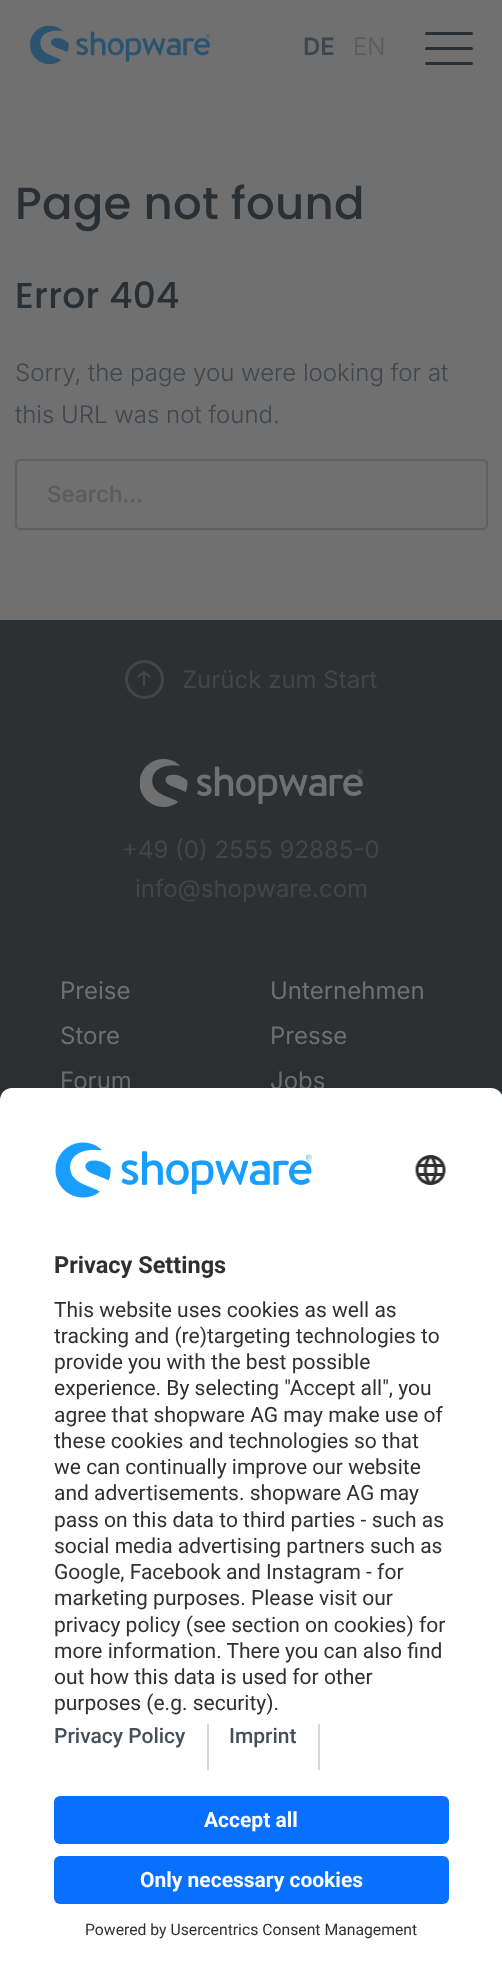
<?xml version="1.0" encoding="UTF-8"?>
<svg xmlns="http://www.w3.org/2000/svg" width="502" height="1985">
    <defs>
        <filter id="blur1" x="-50%" y="-200%" width="200%" height="500%"><feGaussianBlur stdDeviation="75"/></filter>
    </defs>
    <rect width="100%" height="100%" fill="#707070"/>
    <image x="30" y="26" width="180" height="39" href="img_01.png"/>
    <text x="303" y="55" font-family="Inter" font-size="24" font-weight="600" fill="#41464B">DE</text>
    <text x="353" y="55" font-family="Inter" font-size="24" font-weight="300" fill="#595B5E">EN</text>
    <rect x="425" y="32" width="48" height="3" rx="1.5" fill="#2A2F33"/>
    <rect x="425" y="47" width="48" height="3" rx="1.5" fill="#2A2F33"/>
    <rect x="425" y="62" width="48" height="3" rx="1.5" fill="#2A2F33"/>
    <text x="15" y="219" font-family="Poppins" font-size="45" font-weight="500" letter-spacing="0.25" fill="#2A2F33">Page not found</text>
    <text x="15" y="308" font-family="Poppins" font-size="36" font-weight="500" letter-spacing="0.25" fill="#2A2F33">Error 404</text>
    <text font-family="Inter" font-size="24" font-weight="300" fill="#41464B">
        <tspan x="15" y="381">Sorry, the page you were looking for at</tspan>
        <tspan x="15" y="423">this URL was not found.</tspan>
    </text>
    <rect x="16" y="460" width="471" height="69" rx="4" fill="none" stroke="#5D5F60" stroke-width="2"/>
    <text x="47" y="502" font-family="Inter" font-size="22.5" font-weight="500" fill="#595B5E">Search...</text>
    <rect x="0" y="620" width="502" height="480" fill="#2C3033"/>
    <path d="M 144 685 V 672 M 138.5 676.5 L 144 672 L 149.5 676.5" fill="none" stroke="#41464B" stroke-width="2" stroke-linecap="round" stroke-linejoin="round"/>
    <circle cx="144.5" cy="679.5" r="18" fill="none" stroke="#41464B" stroke-width="3"/>
    <text x="182" y="688" font-family="Inter" font-size="24" fill="#41464B">Zurück zum Start</text>
    <image x="140" y="759" width="223" height="48" href="img_02.png"/>
    <text x="122" y="858" font-family="Inter" font-size="24" fill="#41464B">+49 (0) 2555 92885-0</text>
    <text x="135" y="897" font-family="Inter" font-size="24" fill="#41464B">info@shopware.com</text>
    <text font-family="Inter" font-size="24" fill="#707070">
        <tspan x="60" y="999">Preise</tspan>
        <tspan x="60" y="1044">Store</tspan>
        <tspan x="60" y="1089">Forum</tspan>
    </text>
    <text font-family="Inter" font-size="24" fill="#707070">
        <tspan x="270" y="999">Unternehmen</tspan>
        <tspan x="270" y="1044">Presse</tspan>
        <tspan x="270" y="1089">Jobs</tspan>
    </text>
    <rect x="0" y="1148" width="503" height="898" rx="12" fill="#000000" fill-opacity="0.2" filter="url(#blur1)"/>
    <path d="M 12 1088 H 491 C 497.5 1088 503 1093.5 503 1100 V 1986 H 0 V 1100 C 0 1093.5 5.5 1088 12 1088 Z" fill="#FFFFFF"/>
    <image x="55" y="1142" width="257" height="56" href="img_03.png"/>
    <image x="415" y="1155" width="31" height="30" href="img_04.png"/>
    <text x="54" y="1273" font-family="Roboto" font-size="23.5" font-weight="700" fill="#303030">Privacy Settings</text>
    <text font-family="Roboto" font-size="21" fill="#303030">
        <tspan x="54" y="1317">This website uses cookies as well as</tspan>
        <tspan x="54" y="1343">tracking and (re)targeting technologies to</tspan>
        <tspan x="54" y="1369">provide you with the best possible</tspan>
        <tspan x="54" y="1395">experience. By selecting "Accept all", you</tspan>
        <tspan x="54" y="1422">agree that shopware AG may make use of</tspan>
        <tspan x="54" y="1448">these cookies and technologies so that</tspan>
        <tspan x="54" y="1474">we can continually improve our website</tspan>
        <tspan x="54" y="1500">and advertisements. shopware AG may</tspan>
        <tspan x="54" y="1527">pass on this data to third parties - such as</tspan>
        <tspan x="54" y="1553">social media advertising partners such as</tspan>
        <tspan x="54" y="1579">Google, Facebook and Instagram - for</tspan>
        <tspan x="54" y="1605">marketing purposes. Please visit our</tspan>
        <tspan x="54" y="1632">privacy policy (see section on cookies) for</tspan>
        <tspan x="54" y="1658">more information. There you can also find</tspan>
        <tspan x="54" y="1684">out how this data is used for other</tspan>
        <tspan x="54" y="1710">purposes (e.g. security).</tspan>
    </text>
    <rect x="207" y="1724" width="2" height="46" fill="#D5D9DE"/>
    <text x="54" y="1743" font-family="Roboto" font-size="21" font-weight="500" fill="#43505B">Privacy Policy</text>
    <rect x="318" y="1724" width="2" height="46" fill="#D5D9DE"/>
    <text x="229" y="1743" font-family="Roboto" font-size="21" font-weight="500" fill="#43505B">Imprint</text>
    <rect x="54" y="1796" width="395" height="48" rx="6" fill="#0870FF"/>
    <text x="204" y="1827" font-family="Roboto" font-size="21" font-weight="700" fill="#FFFFFF">Accept all</text>
    <rect x="54" y="1856" width="395" height="48" rx="6" fill="#0870FF"/>
    <text x="140" y="1887" font-family="Roboto" font-size="21" font-weight="700" fill="#FFFFFF">Only necessary cookies</text>
    <text x="85" y="1935" font-family="Roboto" font-size="15.75" fill="#303030">Powered by Usercentrics Consent Management</text>
</svg>
